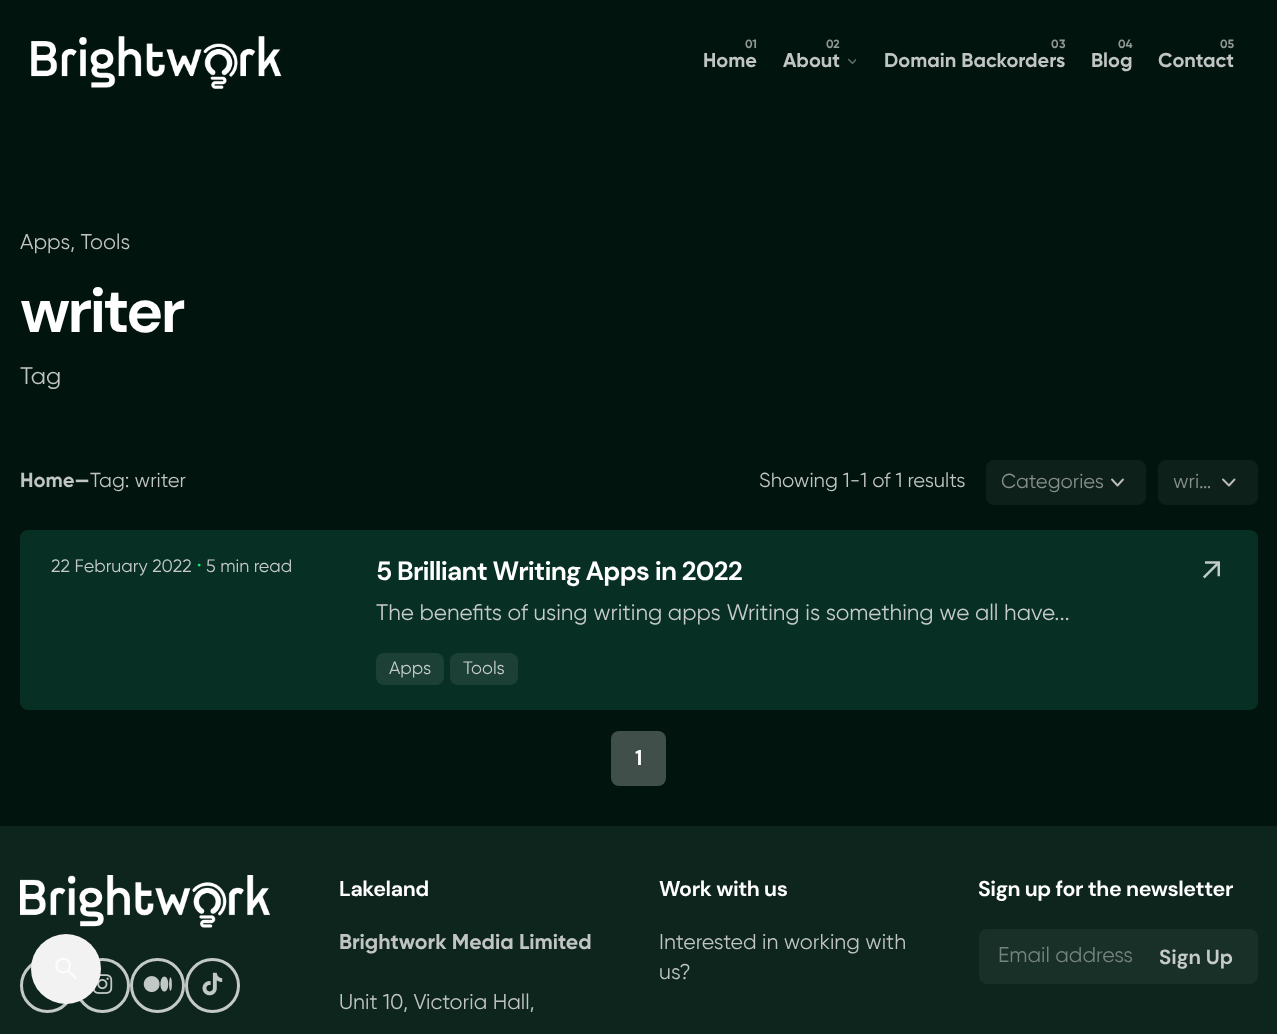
<?xml version="1.0" encoding="UTF-8"?>
<svg xmlns="http://www.w3.org/2000/svg" width="1277" height="1034">
    <rect width="100%" height="100%" fill="#01140E"/>
    <image x="31" y="36" width="251" height="53" href="img_01.png"/>
    <text x="745" y="48" font-family="Gilroy" font-size="12" font-weight="700" fill="#909896">01</text>
    <text x="703" y="67" font-family="Gilroy" font-size="20" font-weight="700" fill="#C0C4C3">Home</text>
    <text x="826" y="48" font-family="Gilroy" font-size="12" font-weight="700" fill="#909896">02</text>
    <text x="783" y="67" font-family="Gilroy" font-size="20" font-weight="700" fill="#C0C4C3">About</text>
    <image x="848" y="58" width="8" height="7" href="img_02.png"/>
    <text x="1051" y="48" font-family="Gilroy" font-size="12" font-weight="700" fill="#909896">0</text>
    <text x="1059" y="48" font-family="Gilroy" font-size="12" font-weight="700" fill="#909896">3</text>
    <text x="884" y="67" font-family="Gilroy" font-size="20" font-weight="700" fill="#C0C4C3">Domain Backorders</text>
    <text x="1118" y="48" font-family="Gilroy" font-size="12" font-weight="700" fill="#909896">04</text>
    <text x="1091" y="67" font-family="Gilroy" font-size="20" font-weight="700" fill="#C0C4C3">Blog</text>
    <text x="1220" y="48" font-family="Gilroy" font-size="12" font-weight="700" fill="#909896">05</text>
    <text x="1158" y="67" font-family="Gilroy" font-size="20" font-weight="700" fill="#C0C4C3">Contact</text>
    <text x="20" y="249" font-family="Gilroy" font-size="21.4" fill="#C0C4C3">Apps, Tools</text>
    <text x="20" y="332" font-family="DM Sans" font-size="62.5" font-weight="700" letter-spacing="-2.75" fill="#FFFFFF">writer</text>
    <text x="20" y="384" font-family="Gilroy" font-size="24" fill="#C0C4C3">Tag</text>
    <text x="20" y="487" font-family="Gilroy" font-size="20.25" font-weight="700" fill="#C0C4C3">Home—</text>
    <text x="90" y="487" font-family="Gilroy" font-size="20.25" fill="#C0C4C3">Tag: writer</text>
    <text x="759" y="487" font-family="Gilroy" font-size="20.25" fill="#C0C4C3">Showing 1-1 of 1 results</text>
    <rect x="986" y="460" width="160" height="45" rx="8" fill="#0E201A"/>
    <path d="M 1112 479.5 L 1117.5 485.5 L 1123 479.5" fill="none" stroke="#BBBBBB" stroke-width="1.9" stroke-linecap="round" stroke-linejoin="round"/>
    <text x="1001" y="488" font-family="Gilroy" font-size="20.25" fill="#87908D">Categories</text>
    <rect x="1158" y="460" width="100" height="45" rx="8" fill="#0E201A"/>
    <path d="M 1223 479.5 L 1229 485.5 L 1234.5 479.5" fill="none" stroke="#BBBBBB" stroke-width="1.9" stroke-linecap="round" stroke-linejoin="round"/>
    <text x="1173" y="488" font-family="Gilroy" font-size="20.25" fill="#87908D">wri…</text>
    <rect x="20" y="530" width="1238" height="180" rx="8" fill="#082F24"/>
    <text x="51" y="572" font-family="Gilroy" font-size="18" fill="#C6CBC9">22 February 2022</text>
    <text x="197" y="570" font-family="Gilroy" font-size="14" fill="#08F26E">•</text>
    <text x="206" y="572" font-family="Gilroy" font-size="18" fill="#C6CBC9">5 min read</text>
    <text x="376" y="580" font-family="DM Sans" font-size="26.4" font-weight="700" letter-spacing="-0.8" fill="#FFFFFF">5 Brilliant Writing Apps in 2022</text>
    <text x="376" y="620" font-family="Gilroy" font-size="22.5" fill="#C6CBC9">The benefits of using writing apps Writing is something we all have...</text>
    <rect x="376" y="653" width="68" height="32" rx="8" fill="#1C4036"/>
    <text x="389" y="674" font-family="Gilroy" font-size="18" fill="#C6CBC9">Apps</text>
    <rect x="450" y="653" width="68" height="32" rx="8" fill="#1C4036"/>
    <text x="463" y="674" font-family="Gilroy" font-size="18" fill="#C6CBC9">Tools</text>
    <image x="1203" y="561" width="17" height="18" href="img_03.png"/>
    <rect x="611" y="731" width="55" height="55" rx="8" fill="#404F4A"/>
    <text x="635" y="765" font-family="DM Sans" font-size="21.4" font-weight="700" fill="#FFFFFF">1</text>
    <rect x="0" y="826" width="1277" height="208" fill="#0D251D"/>
    <circle cx="47.5" cy="985.5" r="26" fill="none" stroke="#C3C9C7" stroke-width="3"/>
    <image x="43" y="995" width="1" height="1" href="img_06.png"/>
    <circle cx="102.5" cy="985.5" r="26" fill="none" stroke="#C3C9C7" stroke-width="3"/>
    <image x="93" y="974" width="20" height="20" href="img_07.png"/>
    <circle cx="66" cy="969" r="35" fill="#F2F2F2"/>
    <image x="55" y="958" width="22" height="22" href="img_04.png"/>
    <image x="20" y="875" width="250" height="53" href="img_05.png"/>
    <circle cx="157.5" cy="985.5" r="26" fill="none" stroke="#C3C9C7" stroke-width="3"/>
    <image x="143" y="976" width="29" height="17" href="img_08.png"/>
    <circle cx="212.5" cy="985.5" r="26" fill="none" stroke="#C3C9C7" stroke-width="3"/>
    <image x="202" y="972" width="21" height="24" href="img_09.png"/>
    <text x="339" y="896" font-family="DM Sans" font-size="21.4" font-weight="700" letter-spacing="-0.4" fill="#FFFFFF">Lakeland</text>
    <text x="339" y="949" font-family="Gilroy" font-size="21.4" font-weight="700" fill="#C0C4C3">Brightwork Media Limited</text>
    <text x="339" y="1009" font-family="Gilroy" font-size="21.4" fill="#C0C4C3">Unit 10, Victoria Hall,</text>
    <text x="659" y="896" font-family="DM Sans" font-size="21.4" font-weight="700" letter-spacing="-0.4" fill="#FFFFFF">Work with us</text>
    <text font-family="Gilroy" font-size="21.4" fill="#C0C4C3">
        <tspan x="659" y="949">Interested in working with</tspan>
        <tspan x="659" y="979">us?</tspan>
    </text>
    <text x="978" y="896" font-family="DM Sans" font-size="21.4" font-weight="700" letter-spacing="-0.4" fill="#FFFFFF">Sign up for the newsletter</text>
    <rect x="979" y="929" width="279" height="55" rx="8" fill="#193028"/>
    <text x="998" y="962" font-family="Gilroy" font-size="21.4" fill="#75837E">Email address</text>
    <text x="1159" y="964" font-family="DM Sans" font-size="20.5" font-weight="700" fill="#C6CBC9">Sign Up</text>
</svg>
